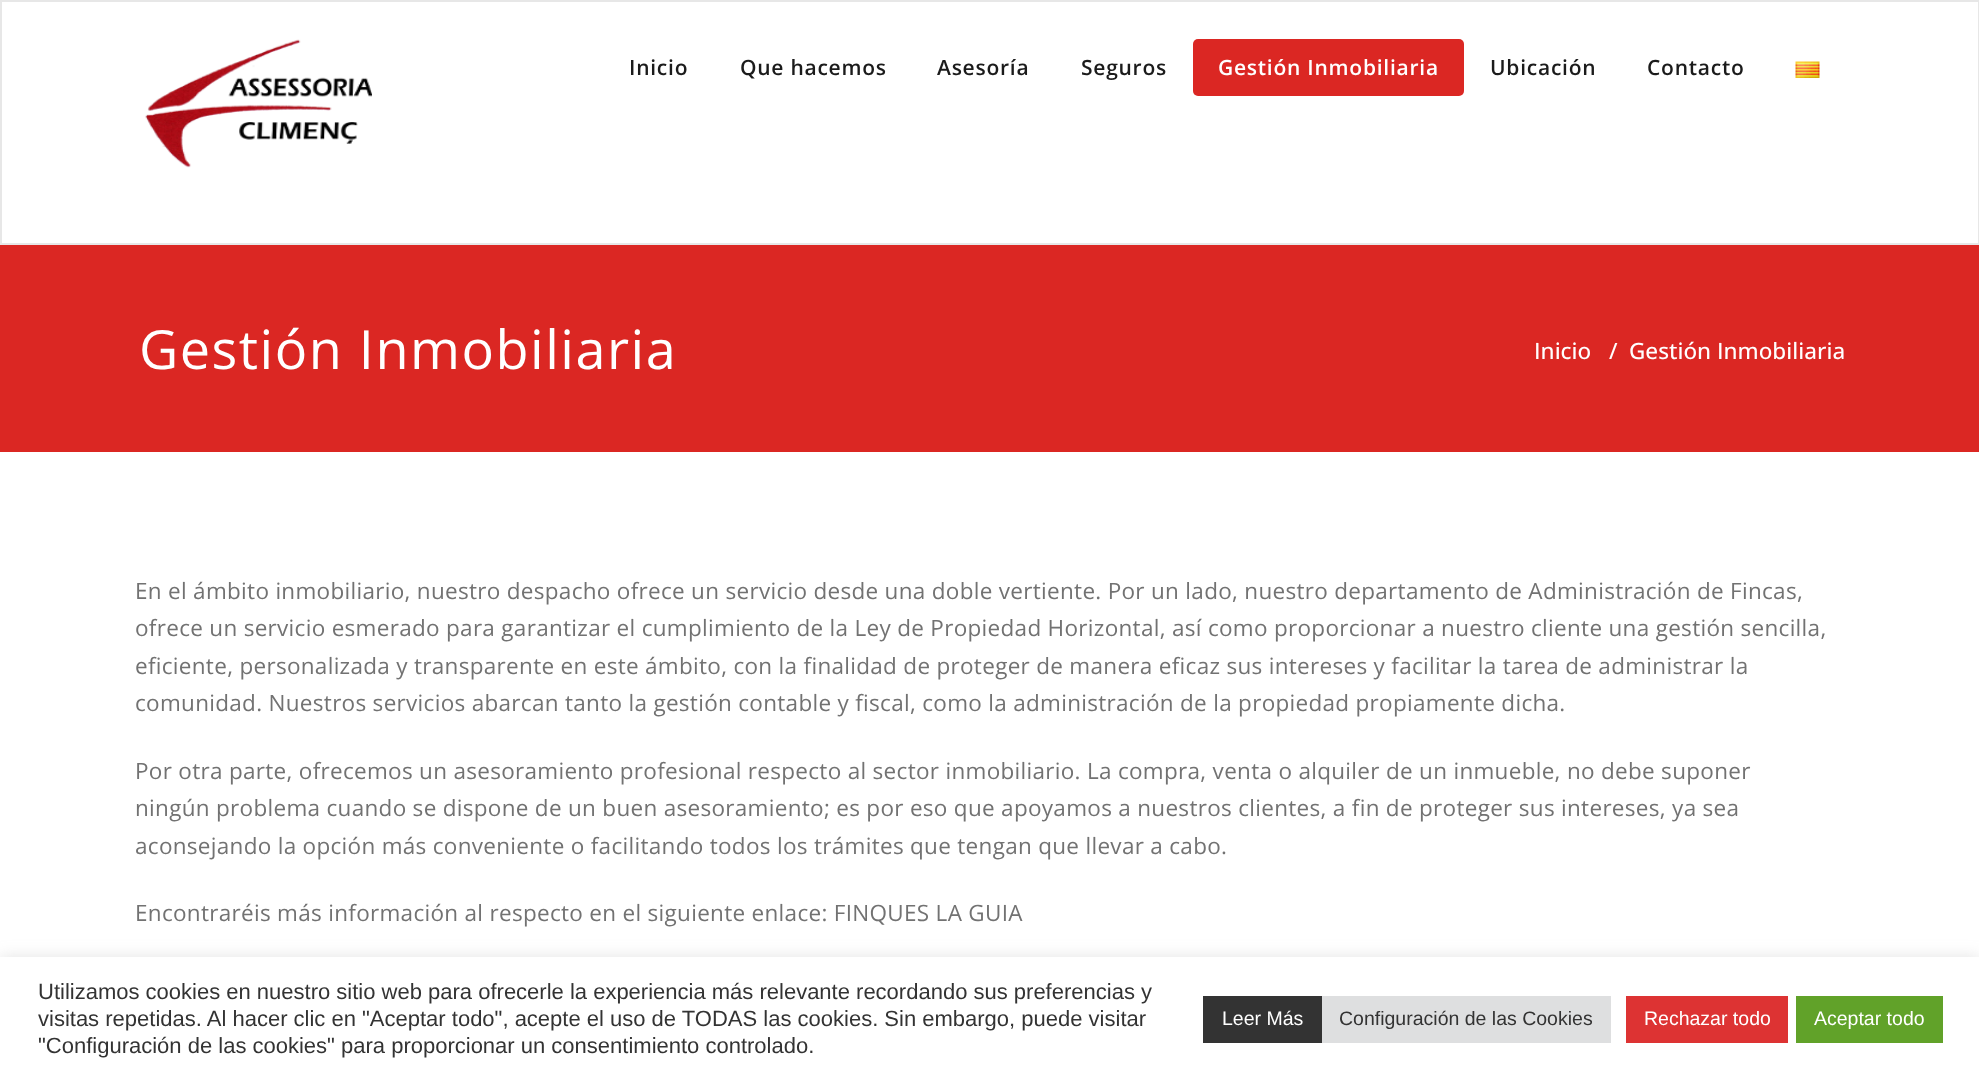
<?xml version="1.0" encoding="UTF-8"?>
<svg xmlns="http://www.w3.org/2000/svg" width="1979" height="1080">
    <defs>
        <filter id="blur1" x="-50%" y="-200%" width="200%" height="500%"><feGaussianBlur stdDeviation="7.5"/></filter>
    </defs>
    <rect width="100%" height="100%" fill="#FFFFFF"/>
    <rect x="1" y="1" width="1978" height="243" fill="none" stroke="#E7E7E7" stroke-width="2"/>
    <image x="145" y="39" width="227" height="129" href="img_01.png"/>
    <text x="629" y="75" font-family="Open Sans" font-size="21" font-weight="600" letter-spacing="0.75" fill="#1B1B1B">Inicio</text>
    <text x="740" y="75" font-family="Open Sans" font-size="21" font-weight="600" letter-spacing="0.75" fill="#1B1B1B">Que hacemos</text>
    <text x="937" y="75" font-family="Open Sans" font-size="21" font-weight="600" letter-spacing="0.75" fill="#1B1B1B">Asesoría</text>
    <text x="1081" y="75" font-family="Open Sans" font-size="21" font-weight="600" letter-spacing="0.75" fill="#1B1B1B">Seguros</text>
    <rect x="1193" y="39" width="271" height="57" rx="5" fill="#DB2723"/>
    <text x="1218" y="75" font-family="Open Sans" font-size="21" font-weight="600" letter-spacing="0.75" fill="#FFFFFF">Gestión Inmobiliaria</text>
    <text x="1490" y="75" font-family="Open Sans" font-size="21" font-weight="600" letter-spacing="0.75" fill="#1B1B1B">Ubicación</text>
    <text x="1647" y="75" font-family="Open Sans" font-size="21" font-weight="600" letter-spacing="0.75" fill="#1B1B1B">Contacto</text>
    <image x="1795" y="61" width="25" height="17" href="img_02.png"/>
    <rect x="0" y="245" width="1979" height="207" fill="#DB2723"/>
    <text x="139" y="369" font-family="Open Sans" font-size="54" letter-spacing="1.5" fill="#FFFFFF">Gestión Inmobiliaria</text>
    <text x="1534" y="359" font-family="Open Sans" font-size="22.5" font-weight="500" fill="#FFFFFF">Inicio</text>
    <text x="1609" y="359" font-family="Open Sans" font-size="22.5" font-weight="500" fill="#FFFFFF">/</text>
    <text x="1629" y="359" font-family="Open Sans" font-size="22.5" font-weight="500" fill="#FFFFFF">Gestión Inmobiliaria</text>
    <text font-family="Open Sans" font-size="22.5" letter-spacing="0.3" fill="#727272">
        <tspan x="135" y="599">En el ámbito inmobiliario, nuestro despacho ofrece un servicio desde una doble vertiente. Por un lado, nuestro departamento de Administración de Fincas,</tspan>
        <tspan x="135" y="636">ofrece un servicio esmerado para garantizar el cumplimiento de la Ley de Propiedad Horizontal, así como proporcionar a nuestro cliente una gestión sencilla,</tspan>
        <tspan x="135" y="674">eficiente, personalizada y transparente en este ámbito, con la finalidad de proteger de manera eficaz sus intereses y facilitar la tarea de administrar la</tspan>
        <tspan x="135" y="711">comunidad. Nuestros servicios abarcan tanto la gestión contable y fiscal, como la administración de la propiedad propiamente dicha.</tspan>
    </text>
    <text font-family="Open Sans" font-size="22.5" letter-spacing="0.3" fill="#727272">
        <tspan x="135" y="779">Por otra parte, ofrecemos un asesoramiento profesional respecto al sector inmobiliario. La compra, venta o alquiler de un inmueble, no debe suponer</tspan>
        <tspan x="135" y="816">ningún problema cuando se dispone de un buen asesoramiento; es por eso que apoyamos a nuestros clientes, a fin de proteger sus intereses, ya sea</tspan>
        <tspan x="135" y="854">aconsejando la opción más conveniente o facilitando todos los trámites que tengan que llevar a cabo.</tspan>
    </text>
    <text x="135" y="921" font-family="Open Sans" font-size="22.5" letter-spacing="0.3" fill="#727272">Encontraréis más información al respecto en el siguiente enlace: FINQUES LA GUIA</text>
    <rect x="0" y="956" width="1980" height="123" fill="#ACABAB" fill-opacity="0.3" filter="url(#blur1)"/>
    <rect x="0" y="957" width="1979" height="123" fill="#FFFFFF"/>
    <text font-family="Liberation Sans" font-size="22" fill="#333333">
        <tspan x="38" y="999">Utilizamos cookies en nuestro sitio web para ofrecerle la experiencia más relevante recordando sus preferencias y</tspan>
        <tspan x="38" y="1026">visitas repetidas. Al hacer clic en "Aceptar todo", acepte el uso de TODAS las cookies. Sin embargo, puede visitar</tspan>
        <tspan x="38" y="1053">"Configuración de las cookies" para proporcionar un consentimiento controlado.</tspan>
    </text>
    <rect x="1203" y="996" width="119" height="47" fill="#333333"/>
    <text x="1222" y="1025" font-family="Liberation Sans" font-size="19.5" fill="#FFFFFF">Leer Más</text>
    <rect x="1322" y="996" width="289" height="47" fill="#DEDFE0"/>
    <text x="1339" y="1025" font-family="Liberation Sans" font-size="19.5" fill="#333333">Configuración de las Cookies</text>
    <rect x="1626" y="996" width="162" height="47" fill="#DD3333"/>
    <text x="1644" y="1025" font-family="Liberation Sans" font-size="19.5" fill="#FFFFFF">Rechazar todo</text>
    <rect x="1796" y="996" width="147" height="47" fill="#61A229"/>
    <text x="1814" y="1025" font-family="Liberation Sans" font-size="19.5" fill="#FFFFFF">Aceptar todo</text>
</svg>
